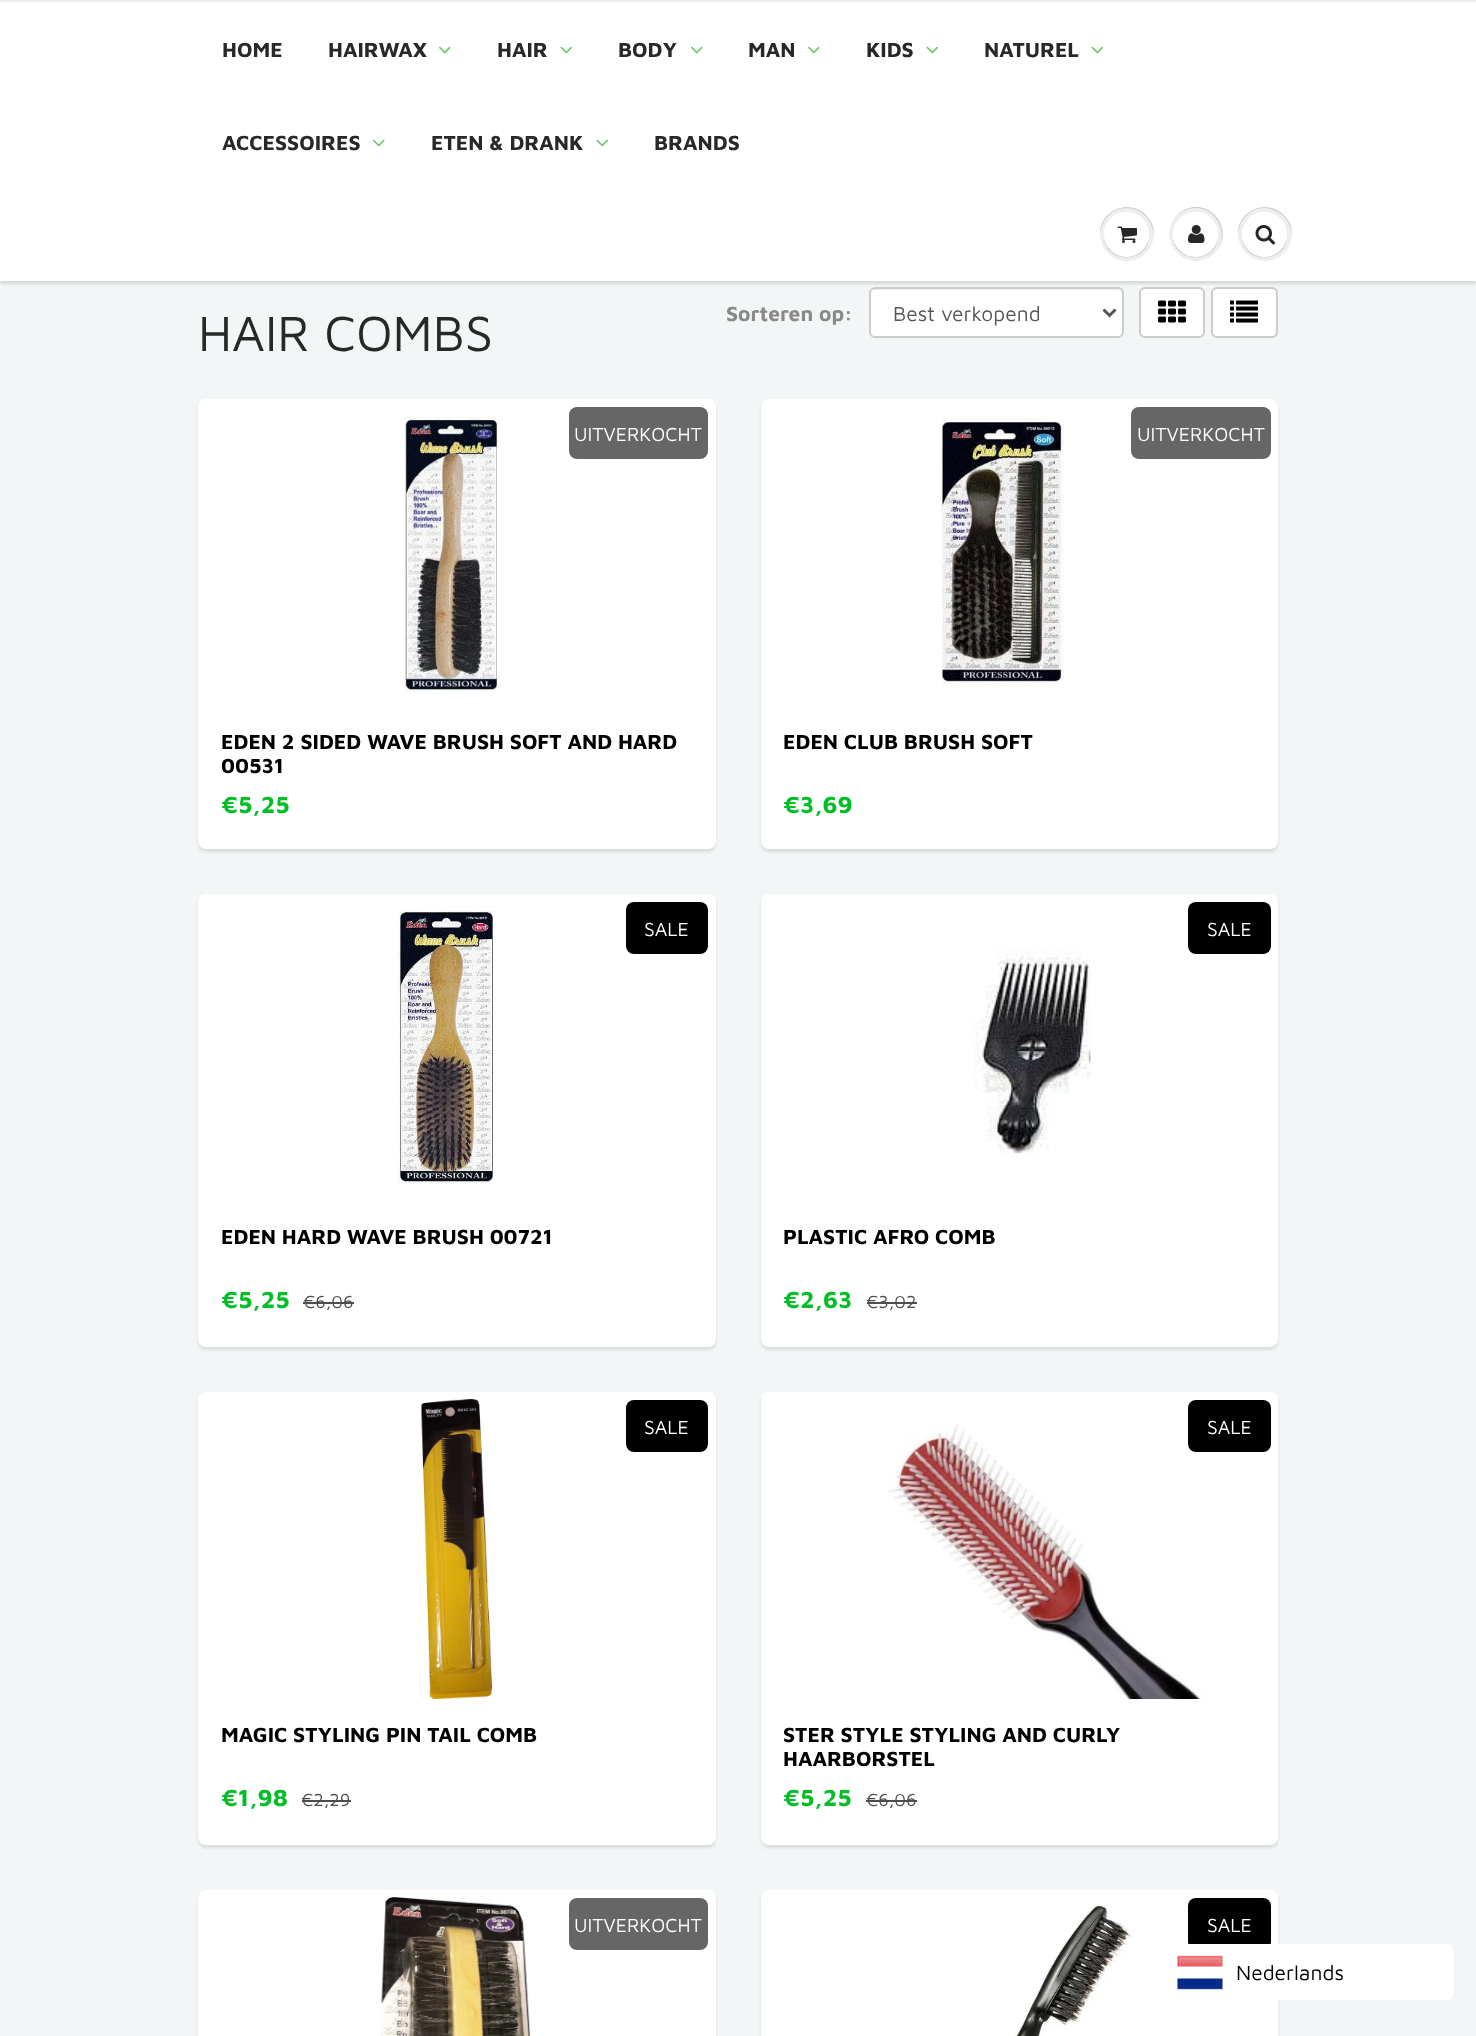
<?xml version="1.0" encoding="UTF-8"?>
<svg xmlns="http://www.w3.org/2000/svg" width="1476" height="2036">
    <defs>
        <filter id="blur1" x="-50%" y="-200%" width="200%" height="500%"><feGaussianBlur stdDeviation="1.5"/></filter>
    </defs>
    <rect width="100%" height="100%" fill="#F3F6F6"/>
    <rect x="869" y="287" width="255" height="51" rx="6" fill="#FFFFFF"/>
    <path d="M 874 290 H 1118 C 1120 290 1122 292 1122 294 V 293 C 1122 290 1120 288 1117 288 H 875 C 872 288 870 290 870 293 V 294 C 870 292 872 290 874 290 Z" fill="#ECECEC"/>
    <rect x="870" y="288" width="253" height="49" rx="5" fill="none" stroke="#CCCCCC" stroke-width="2"/>
    <rect x="1140" y="288" width="64" height="49" rx="5" fill="#FFFFFF" stroke="#CCCCCC" stroke-width="2"/>
    <rect x="1212" y="288" width="65" height="49" rx="5" fill="#FFFFFF" stroke="#CCCCCC" stroke-width="2"/>
    <rect x="0" y="3" width="1476" height="281" fill="#0B191C" fill-opacity="0.12" filter="url(#blur1)"/>
    <rect x="0" y="2" width="1476" height="279" fill="#FFFFFF"/>
    <rect x="0" y="0" width="1476" height="2" fill="#ECEFEF"/>
    <text x="222" y="57" font-family="Maven Pro" font-size="21" font-weight="700" fill="#282827">HOME</text>
    <text x="328" y="57" font-family="Maven Pro" font-size="21" font-weight="700" fill="#282827">HAIRWAX</text>
    <image x="439" y="46" width="12" height="8" href="img_01.png"/>
    <text x="497" y="57" font-family="Maven Pro" font-size="21" font-weight="700" fill="#282827">HAIR</text>
    <image x="560" y="46" width="12" height="8" href="img_02.png"/>
    <text x="618" y="57" font-family="Maven Pro" font-size="21" font-weight="700" fill="#282827">BODY</text>
    <image x="691" y="46" width="12" height="8" href="img_01.png"/>
    <text x="748" y="57" font-family="Maven Pro" font-size="21" font-weight="700" fill="#282827">MAN</text>
    <image x="808" y="46" width="12" height="8" href="img_01.png"/>
    <text x="866" y="57" font-family="Maven Pro" font-size="21" font-weight="700" fill="#282827">KIDS</text>
    <image x="926" y="46" width="12" height="8" href="img_02.png"/>
    <text x="984" y="57" font-family="Maven Pro" font-size="21" font-weight="700" fill="#282827">NATUREL</text>
    <image x="1091" y="46" width="12" height="8" href="img_02.png"/>
    <text x="222" y="150" font-family="Maven Pro" font-size="21" font-weight="700" fill="#282827">ACCESSOIRES</text>
    <image x="373" y="139" width="12" height="8" href="img_01.png"/>
    <text x="431" y="150" font-family="Maven Pro" font-size="21" font-weight="700" fill="#282827">ETEN &amp; DRANK</text>
    <image x="596" y="139" width="12" height="8" href="img_02.png"/>
    <text x="654" y="150" font-family="Maven Pro" font-size="21" font-weight="700" fill="#282827">BRANDS</text>
    <circle cx="1127" cy="234" r="27" fill="#EDEFEF"/>
    <path d="M 1126 208 C 1141 208 1153 220 1154 235 C 1154 229 1153 224 1149 219 C 1134 197 1099 208 1100 235 C 1101 220 1112 208 1126 208 Z M 1104 235 C 1103 265 1150 265 1149 235 C 1148 263 1105 263 1104 235 Z" fill="#C9CBCB"/>
    <circle cx="1126.5" cy="234.5" r="22.5" fill="#FFFFFF"/>
    <path d="M 1126 213 C 1144 213 1151 230 1147 243 C 1157 219 1123 199 1108 222 C 1104 227 1103 234 1105 240 C 1103 227 1110 213 1126 213 Z" fill="#FFFFFF"/>
    <image x="1117" y="226" width="20" height="17" href="img_03.png"/>
    <circle cx="1196" cy="234" r="27" fill="#EDEFEF"/>
    <path d="M 1196 208 C 1217 208 1229 234 1217 250 C 1234 229 1210 197 1184 210 C 1178 213 1174 218 1171 224 C 1176 214 1185 208 1196 208 Z" fill="#C9CBCB"/>
    <path d="M 1173 235 C 1172 265 1219 265 1218 235 C 1217 263 1174 263 1173 235 Z" fill="#C9CBCB"/>
    <circle cx="1195.5" cy="234.5" r="22.5" fill="#FFFFFF"/>
    <path d="M 1196 213 C 1212 213 1219 227 1217 240 C 1219 234 1218 227 1214 222 C 1199 199 1165 219 1175 243 C 1171 230 1178 213 1196 213 Z" fill="#FFFFFF"/>
    <image x="1188" y="225" width="17" height="18" href="img_04.png"/>
    <circle cx="1265" cy="234" r="27" fill="#EDEFEF"/>
    <path d="M 1264 208 C 1279 208 1291 220 1292 235 C 1292 229 1291 224 1287 219 C 1272 197 1237 208 1238 235 C 1239 220 1250 208 1264 208 Z M 1242 235 C 1241 265 1288 265 1287 235 C 1286 263 1243 263 1242 235 Z" fill="#C9CBCB"/>
    <circle cx="1264.5" cy="234.5" r="22.5" fill="#FFFFFF"/>
    <path d="M 1264 213 C 1282 213 1289 230 1285 243 C 1295 219 1261 199 1246 222 C 1242 227 1241 234 1243 240 C 1241 227 1248 213 1264 213 Z" fill="#FFFFFF"/>
    <image x="1255" y="225" width="20" height="20" href="img_05.png"/>
    <text x="726" y="321" font-family="Maven Pro" font-size="21" font-weight="700" fill="#898989">Sorteren op:</text>
    <path d="M 1103.5 309.5 L 1109.5 315.5 L 1115.5 309.5" fill="none" stroke="#555555" stroke-width="3"/>
    <text x="893" y="321" font-family="Maven Pro" font-size="21" fill="#555555">Best verkopend</text>
    <image x="1158" y="300" width="28" height="23" href="img_06.png"/>
    <image x="1230" y="300" width="28" height="23" href="img_07.png"/>
    <rect x="198" y="402" width="518" height="450" rx="8" fill="#0B191C" fill-opacity="0.1" filter="url(#blur1)"/>
    <rect x="202" y="403" width="510" height="442" rx="4" fill="#FFFFFF" stroke="#FFFFFF" stroke-width="8"/>
    <image x="404" y="416" width="97" height="282" href="img_08.png"/>
    <rect x="569" y="407" width="139" height="52" rx="8" fill="#666666"/>
    <text x="574" y="441" font-family="Maven Pro" font-size="19.5" fill="#FFFFFF">UITVERKOCHT</text>
    <text font-family="Maven Pro" font-size="21" font-weight="700" fill="#000000">
        <tspan x="221" y="749">EDEN 2 SIDED WAVE BRUSH SOFT AND HARD</tspan>
        <tspan x="221" y="773">00531</tspan>
    </text>
    <text x="221" y="813" font-family="Maven Pro" font-size="24" font-weight="700" fill="#04BE28">€5,25</text>
    <rect x="761" y="402" width="517" height="450" rx="8" fill="#0B191C" fill-opacity="0.1" filter="url(#blur1)"/>
    <rect x="765" y="403" width="509" height="442" rx="4" fill="#FFFFFF" stroke="#FFFFFF" stroke-width="8"/>
    <image x="941" y="418" width="123" height="268" href="img_09.png"/>
    <rect x="1131" y="407" width="140" height="52" rx="8" fill="#666666"/>
    <text x="1137" y="441" font-family="Maven Pro" font-size="19.5" fill="#FFFFFF">UITVERKOCHT</text>
    <text x="783" y="749" font-family="Maven Pro" font-size="21" font-weight="700" fill="#000000">EDEN CLUB BRUSH SOFT</text>
    <text x="783" y="813" font-family="Maven Pro" font-size="24" font-weight="700" fill="#04BE28">€3,69</text>
    <rect x="198" y="897" width="518" height="453" rx="8" fill="#0B191C" fill-opacity="0.1" filter="url(#blur1)"/>
    <rect x="202" y="898" width="510" height="445" rx="4" fill="#FFFFFF" stroke="#FFFFFF" stroke-width="8"/>
    <image x="396" y="911" width="97" height="273" href="img_10.png"/>
    <rect x="626" y="902" width="82" height="52" rx="8" fill="#000000"/>
    <text x="644" y="936" font-family="Maven Pro" font-size="19.5" fill="#FFFFFF">SALE</text>
    <text x="221" y="1244" font-family="Maven Pro" font-size="21" font-weight="700" fill="#000000">EDEN HARD WAVE BRUSH 00721</text>
    <text x="221" y="1308" font-family="Maven Pro" font-size="24" font-weight="700" fill="#04BE28">€5,25</text>
    <text x="303" y="1308" font-family="Maven Pro" font-size="18" fill="#4D4D4D">€6,06</text>
    <rect x="303" y="1302" width="51" height="2" fill="#4D4D4D"/>
    <rect x="761" y="897" width="517" height="453" rx="8" fill="#0B191C" fill-opacity="0.1" filter="url(#blur1)"/>
    <rect x="765" y="898" width="509" height="445" rx="4" fill="#FFFFFF" stroke="#FFFFFF" stroke-width="8"/>
    <rect x="1188" y="902" width="83" height="52" rx="8" fill="#000000"/>
    <text x="1207" y="936" font-family="Maven Pro" font-size="19.5" fill="#FFFFFF">SALE</text>
    <image x="973" y="949" width="118" height="204" href="img_11.png"/>
    <text x="783" y="1244" font-family="Maven Pro" font-size="21" font-weight="700" fill="#000000">PLASTIC AFRO COMB</text>
    <text x="783" y="1308" font-family="Maven Pro" font-size="24" font-weight="700" fill="#04BE28">€2,63</text>
    <text x="866" y="1308" font-family="Maven Pro" font-size="18" fill="#4D4D4D">€3,02</text>
    <rect x="867" y="1302" width="50" height="2" fill="#4D4D4D"/>
    <rect x="198" y="1395" width="518" height="453" rx="8" fill="#0B191C" fill-opacity="0.1" filter="url(#blur1)"/>
    <rect x="202" y="1396" width="510" height="445" rx="4" fill="#FFFFFF" stroke="#FFFFFF" stroke-width="8"/>
    <image x="421" y="1399" width="71" height="300" href="img_12.png"/>
    <rect x="626" y="1400" width="82" height="52" rx="8" fill="#000000"/>
    <text x="644" y="1434" font-family="Maven Pro" font-size="19.5" fill="#FFFFFF">SALE</text>
    <text x="221" y="1742" font-family="Maven Pro" font-size="21" font-weight="700" fill="#000000">MAGIC STYLING PIN TAIL COMB</text>
    <text x="221" y="1806" font-family="Maven Pro" font-size="24" font-weight="700" fill="#04BE28">€1,98</text>
    <text x="301" y="1806" font-family="Maven Pro" font-size="18" fill="#4D4D4D">€2,29</text>
    <rect x="302" y="1800" width="49" height="2" fill="#4D4D4D"/>
    <rect x="761" y="1395" width="517" height="453" rx="8" fill="#0B191C" fill-opacity="0.1" filter="url(#blur1)"/>
    <rect x="765" y="1396" width="509" height="445" rx="4" fill="#FFFFFF" stroke="#FFFFFF" stroke-width="8"/>
    <image x="888" y="1424" width="315" height="275" href="img_13.png"/>
    <rect x="1188" y="1400" width="83" height="52" rx="8" fill="#000000"/>
    <text x="1207" y="1434" font-family="Maven Pro" font-size="19.5" fill="#FFFFFF">SALE</text>
    <text font-family="Maven Pro" font-size="21" font-weight="700" fill="#000000">
        <tspan x="783" y="1742">STER STYLE STYLING AND CURLY</tspan>
        <tspan x="783" y="1766">HAARBORSTEL</tspan>
    </text>
    <text x="783" y="1806" font-family="Maven Pro" font-size="24" font-weight="700" fill="#04BE28">€5,25</text>
    <text x="866" y="1806" font-family="Maven Pro" font-size="18" fill="#4D4D4D">€6,06</text>
    <rect x="866" y="1800" width="51" height="2" fill="#4D4D4D"/>
    <rect x="198" y="1893" width="518" height="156" rx="8" fill="#0B191C" fill-opacity="0.1" filter="url(#blur1)"/>
    <rect x="202" y="1894" width="510" height="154" rx="4" fill="#FFFFFF" stroke="#FFFFFF" stroke-width="8"/>
    <image x="380" y="1897" width="151" height="139" href="img_14.png"/>
    <rect x="569" y="1898" width="139" height="52" rx="8" fill="#666666"/>
    <text x="574" y="1932" font-family="Maven Pro" font-size="19.5" fill="#FFFFFF">UITVERKOCHT</text>
    <rect x="761" y="1893" width="517" height="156" rx="8" fill="#0B191C" fill-opacity="0.1" filter="url(#blur1)"/>
    <rect x="765" y="1894" width="509" height="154" rx="4" fill="#FFFFFF" stroke="#FFFFFF" stroke-width="8"/>
    <image x="1014" y="1904" width="118" height="132" href="img_15.png"/>
    <rect x="1188" y="1898" width="83" height="52" rx="8" fill="#000000"/>
    <text x="1207" y="1932" font-family="Maven Pro" font-size="19.5" fill="#FFFFFF">SALE</text>
    <text x="198" y="351" font-family="Maven Pro" font-size="51" fill="#282827">HAIR COMBS</text>
    <rect x="1169" y="1944" width="285" height="56" rx="8" fill="#FFFFFF"/>
    <image x="1177" y="1955" width="46" height="35" href="img_16.png"/>
    <text x="1236" y="1980" font-family="Maven Pro" font-size="21" fill="#000000">Nederlands</text>
</svg>
